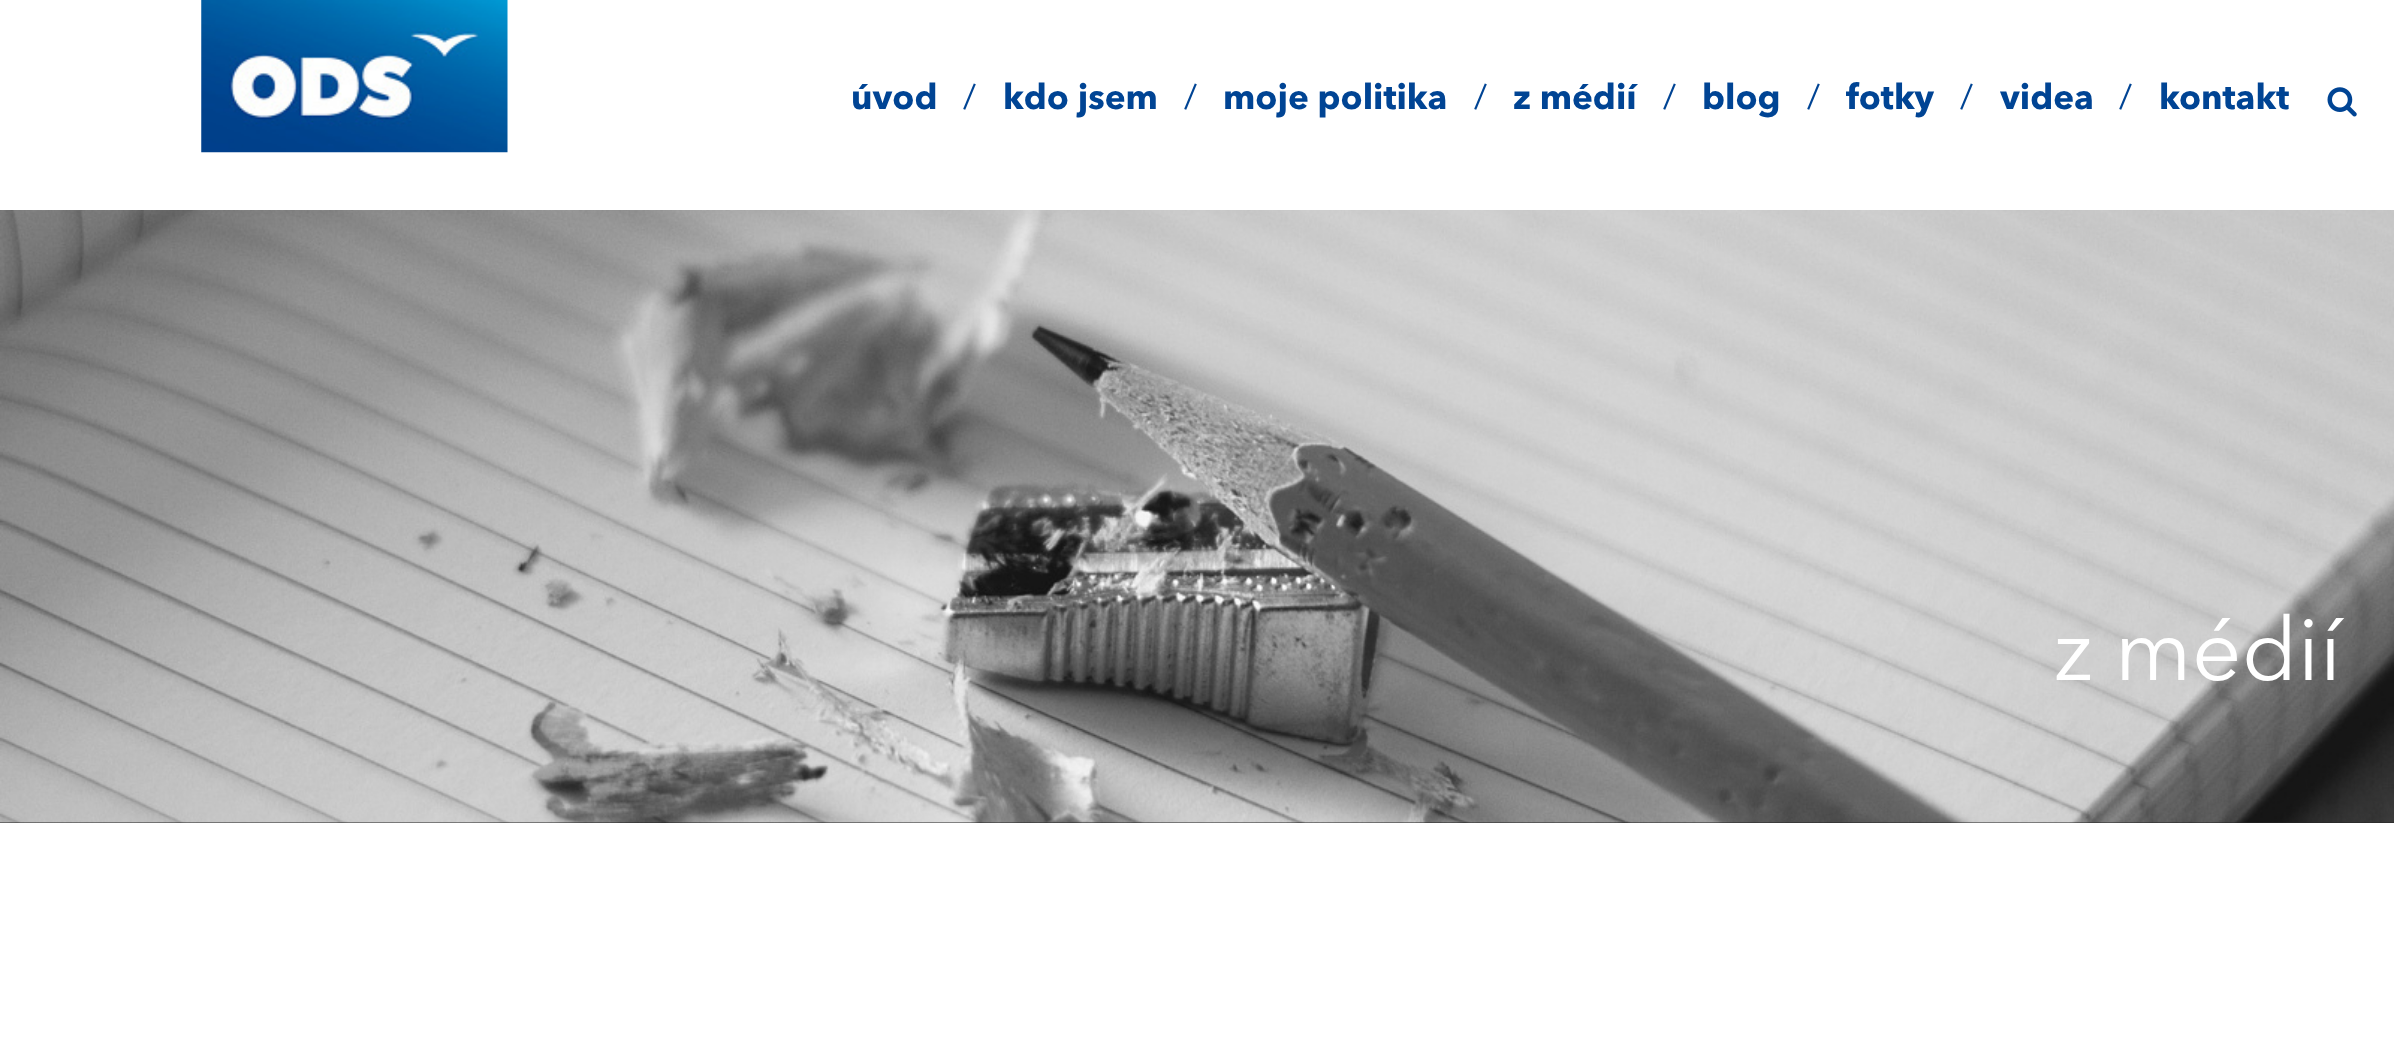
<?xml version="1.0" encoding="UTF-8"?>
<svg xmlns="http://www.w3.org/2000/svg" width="2394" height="1038">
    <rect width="100%" height="100%" fill="#FFFFFF"/>
    <image x="201" y="0" width="307" height="153" href="img_01.png"/>
    <image x="2327" y="87" width="30" height="30" href="img_02.png"/>
    <text x="851" y="109" font-family="Avenir Next" font-size="35" font-weight="700" fill="#004494">úvod</text>
    <text x="963" y="109" font-family="Avenir Next" font-size="35" fill="#004494">/</text>
    <text x="1003" y="109" font-family="Avenir Next" font-size="35" font-weight="700" fill="#004494">kdo jsem</text>
    <text x="1184" y="109" font-family="Avenir Next" font-size="35" fill="#004494">/</text>
    <text x="1223" y="109" font-family="Avenir Next" font-size="35" font-weight="700" fill="#004494">moje politika</text>
    <text x="1474" y="109" font-family="Avenir Next" font-size="35" fill="#004494">/</text>
    <text x="1513" y="109" font-family="Avenir Next" font-size="35" font-weight="700" fill="#004494">z médií</text>
    <text x="1663" y="109" font-family="Avenir Next" font-size="35" fill="#004494">/</text>
    <text x="1702" y="109" font-family="Avenir Next" font-size="35" font-weight="700" fill="#004494">blog</text>
    <text x="1807" y="109" font-family="Avenir Next" font-size="35" fill="#004494">/</text>
    <text x="1846" y="109" font-family="Avenir Next" font-size="35" font-weight="700" fill="#004494">fotky</text>
    <text x="1960" y="109" font-family="Avenir Next" font-size="35" fill="#004494">/</text>
    <text x="2000" y="109" font-family="Avenir Next" font-size="35" font-weight="700" fill="#004494">videa</text>
    <text x="2119" y="109" font-family="Avenir Next" font-size="35" fill="#004494">/</text>
    <text x="2159" y="109" font-family="Avenir Next" font-size="35" font-weight="700" fill="#004494">kontakt</text>
    <rect x="0" y="822" width="2394" height="1" fill="#242424"/>
    <image x="0" y="210" width="2394" height="613" href="img_03.png"/>
    <text x="2054" y="680" font-family="Avenir Next" font-size="87.5" fill="#FFFFFF">z médií</text>
</svg>
